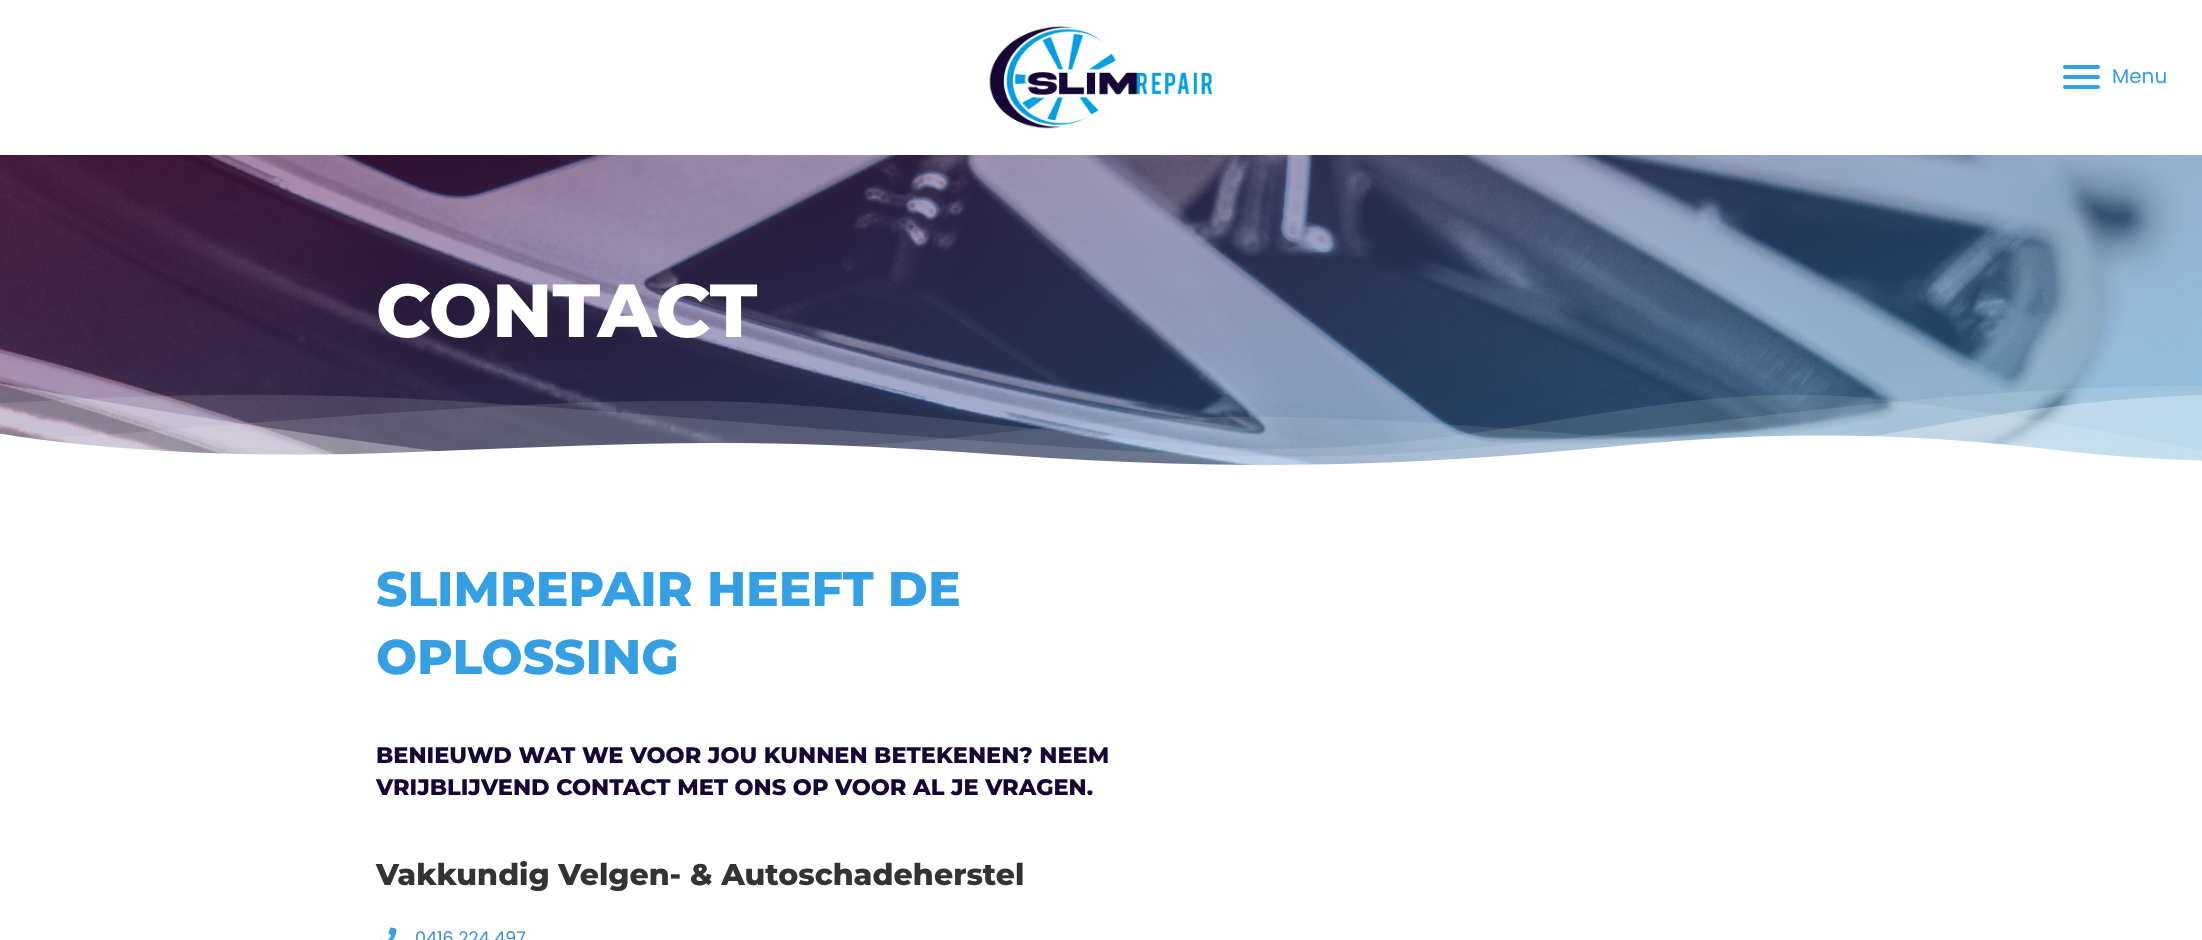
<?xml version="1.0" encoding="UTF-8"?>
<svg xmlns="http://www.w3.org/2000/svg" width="2202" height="940">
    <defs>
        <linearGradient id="g1" gradientUnits="userSpaceOnUse" x1="908" y1="-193" x2="1295" y2="816"><stop offset="0" stop-color="#5A0747" stop-opacity="0.51"/><stop offset="1" stop-color="#359FE3" stop-opacity="0.49"/></linearGradient>
    </defs>
    <rect width="100%" height="100%" fill="#FFFFFF"/>
    <image x="989" y="26" width="224" height="103" href="img_01.png"/>
    <rect x="2063" y="75" width="37" height="4" rx="2" fill="#359FE3"/>
    <rect x="2063" y="65" width="37" height="4" rx="2" fill="#359FE3"/>
    <rect x="2063" y="85" width="37" height="4" rx="2" fill="#359FE3"/>
    <text x="2112" y="83" font-family="Poppins" font-size="20" fill="#359FE3">Menu</text>
    <image x="0" y="155" width="2202" height="310" href="img_02.png"/>
    <rect x="0" y="155" width="2202" height="310" fill="url(#g1)"/>
    <text x="376" y="337" font-family="Montserrat" font-size="75" font-weight="100" fill="#FFFFFF">CONTACT</text>
    <image x="0" y="383" width="2202" height="85" href="img_03.png"/>
    <text font-family="Montserrat" font-size="48.6" font-weight="100" fill="#359FE3">
        <tspan x="376" y="606">SLIMREPAIR HEEFT DE</tspan>
        <tspan x="376" y="674">OPLOSSING</tspan>
    </text>
    <text font-family="Montserrat" font-size="22.5" font-weight="100" fill="#170536">
        <tspan x="376" y="763">BENIEUWD WAT WE VOOR JOU KUNNEN BETEKENEN? NEEM</tspan>
        <tspan x="376" y="795">VRIJBLIJVEND CONTACT MET ONS OP VOOR AL JE VRAGEN.</tspan>
    </text>
    <text x="376" y="885" font-family="Montserrat" font-size="30" font-weight="100" fill="#333333">Vakkundig Velgen- &amp; Autoschadeherstel</text>
    <image x="381" y="927" width="16" height="13" href="img_04.png"/>
    <text x="415" y="944" font-family="Poppins" font-size="17.5" fill="#428BCA">0416 224 497</text>
</svg>
